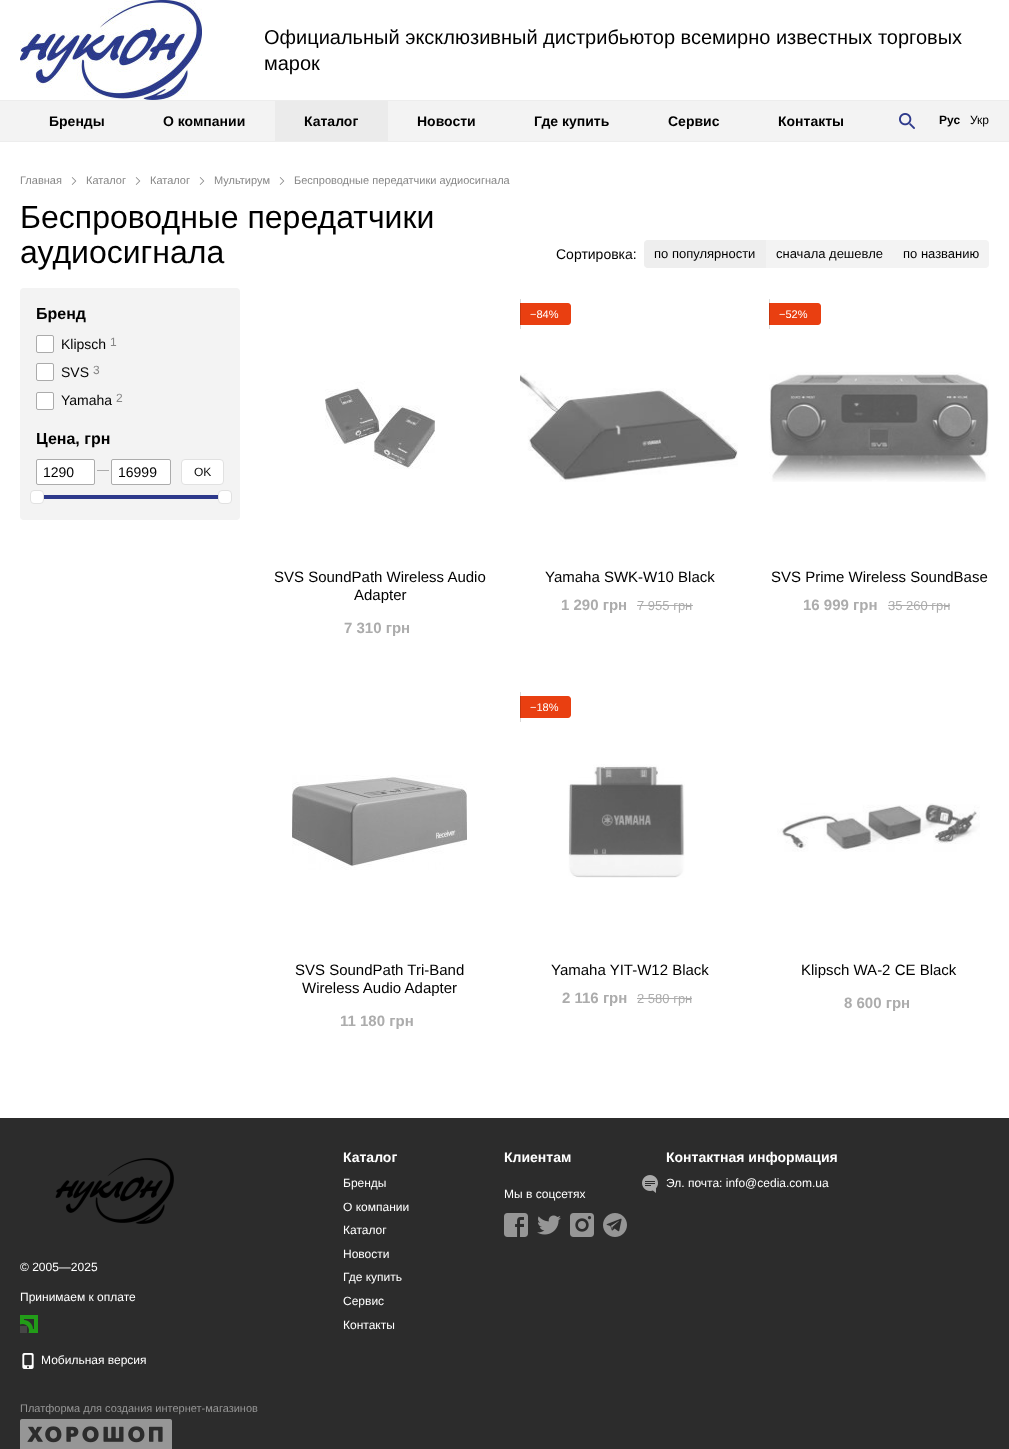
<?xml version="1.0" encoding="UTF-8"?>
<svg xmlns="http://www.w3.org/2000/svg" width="1009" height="1449">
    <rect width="100%" height="100%" fill="#FFFFFF"/>
    <rect x="520" y="692" width="1" height="30" fill="#D9D9D9"/>
    <rect x="769" y="299" width="1" height="30" fill="#D9D9D9"/>
    <rect x="520" y="299" width="1" height="30" fill="#D9D9D9"/>
    <image x="20" y="0" width="182" height="100" href="img_01.png"/>
    <text font-family="Liberation Sans" font-size="20" fill="#000000">
        <tspan x="264" y="44">Официальный эксклюзивный дистрибьютор всемирно известных торговых</tspan>
        <tspan x="264" y="70">марок</tspan>
    </text>
    <rect x="0" y="101" width="1009" height="40" fill="#F3F3F3"/>
    <rect x="0" y="100" width="1009" height="1" fill="#EDEDED"/>
    <rect x="0" y="141" width="1009" height="1" fill="#EDEDED"/>
    <text x="49" y="126" font-family="Liberation Sans" font-size="14" font-weight="700" fill="#000000">Бренды</text>
    <text x="163" y="126" font-family="Liberation Sans" font-size="14" font-weight="700" fill="#000000">О компании</text>
    <rect x="275" y="101" width="113" height="40" fill="#EBEBEB"/>
    <text x="304" y="126" font-family="Liberation Sans" font-size="14" font-weight="700" fill="#000000">Каталог</text>
    <text x="417" y="126" font-family="Liberation Sans" font-size="14" font-weight="700" fill="#000000">Новости</text>
    <text x="534" y="126" font-family="Liberation Sans" font-size="14" font-weight="700" fill="#000000">Где купить</text>
    <text x="668" y="126" font-family="Liberation Sans" font-size="14" font-weight="700" fill="#000000">Сервис</text>
    <text x="778" y="126" font-family="Liberation Sans" font-size="14" font-weight="700" fill="#000000">Контакты</text>
    <image x="899" y="113" width="16" height="16" href="img_02.png"/>
    <text x="939" y="124" font-family="Liberation Sans" font-size="12" font-weight="700" fill="#000000">Рус</text>
    <text x="970" y="124" font-family="Liberation Sans" font-size="12" fill="#000000">Укр</text>
    <text x="20" y="184" font-family="Liberation Sans" font-size="11" fill="#868686">Главная</text>
    <image x="71" y="177" width="6" height="8" href="img_03.png"/>
    <text x="86" y="184" font-family="Liberation Sans" font-size="11" fill="#868686">Каталог</text>
    <image x="135" y="177" width="6" height="8" href="img_03.png"/>
    <text x="150" y="184" font-family="Liberation Sans" font-size="11" fill="#868686">Каталог</text>
    <image x="199" y="177" width="6" height="8" href="img_03.png"/>
    <text x="214" y="184" font-family="Liberation Sans" font-size="11" fill="#868686">Мультирум</text>
    <image x="279" y="177" width="6" height="8" href="img_03.png"/>
    <text x="294" y="184" font-family="Liberation Sans" font-size="11" fill="#868686">Беспроводные передатчики аудиосигнала</text>
    <text font-family="Liberation Sans" font-size="32" fill="#000000">
        <tspan x="20" y="228">Беспроводные передатчики</tspan>
        <tspan x="20" y="263">аудиосигнала</tspan>
    </text>
    <text x="556" y="259" font-family="Liberation Sans" font-size="14" fill="#000000">Сортировка:</text>
    <rect x="644" y="240" width="345" height="28" rx="4" fill="#F3F3F3"/>
    <path d="M 648 240 H 766 V 268 H 648 C 646 268 644 266 644 264 V 244 C 644 242 646 240 648 240 Z" fill="#EEEEEE"/>
    <text x="654" y="258" font-family="Liberation Sans" font-size="13" fill="#000000">по популярности</text>
    <text x="776" y="258" font-family="Liberation Sans" font-size="13" fill="#000000">сначала дешевле</text>
    <text x="903" y="258" font-family="Liberation Sans" font-size="13" fill="#000000">по названию</text>
    <rect x="20" y="288" width="220" height="232" rx="4" fill="#F3F3F3"/>
    <text x="36" y="319" font-family="Liberation Sans" font-size="16" font-weight="700" fill="#000000">Бренд</text>
    <rect x="36.5" y="335.5" width="17" height="17" rx="1.5" fill="#FFFFFF" stroke="#ABABAB"/>
    <text x="61" y="349" font-family="Liberation Sans" font-size="14" fill="#000000">Klipsch</text>
    <text x="110" y="346" font-family="Liberation Sans" font-size="12" fill="#868686">1</text>
    <rect x="36.5" y="363.5" width="17" height="17" rx="1.5" fill="#FFFFFF" stroke="#ABABAB"/>
    <text x="61" y="377" font-family="Liberation Sans" font-size="14" fill="#000000">SVS</text>
    <text x="93" y="374" font-family="Liberation Sans" font-size="12" fill="#868686">3</text>
    <rect x="36.5" y="392.5" width="17" height="17" rx="1.5" fill="#FFFFFF" stroke="#ABABAB"/>
    <text x="61" y="405" font-family="Liberation Sans" font-size="14" fill="#000000">Yamaha</text>
    <text x="116" y="402" font-family="Liberation Sans" font-size="12" fill="#868686">2</text>
    <text x="36" y="444" font-family="Liberation Sans" font-size="16" font-weight="700" fill="#000000">Цена, грн</text>
    <rect x="36.5" y="459.5" width="58" height="25" rx="1.5" fill="#FFFFFF" stroke="#ACACAC"/>
    <text x="43" y="477" font-family="Liberation Sans" font-size="14" fill="#000000">1290</text>
    <rect x="97" y="470" width="12" height="1" fill="#ACACAC"/>
    <rect x="111.5" y="459.5" width="59" height="25" rx="1.5" fill="#FFFFFF" stroke="#ACACAC"/>
    <text x="118" y="477" font-family="Liberation Sans" font-size="14" fill="#000000">16999</text>
    <rect x="181.5" y="459.5" width="42" height="25" rx="3.5" fill="#FFFFFF" stroke="#E1E1E1"/>
    <text x="194" y="476" font-family="Liberation Sans" font-size="12" fill="#0B0B0B">OK</text>
    <rect x="36" y="495" width="188" height="4" fill="#2D398B"/>
    <rect x="30.5" y="490.5" width="13" height="13" rx="3.5" fill="#FFFFFF" stroke="#E1E1E1"/>
    <rect x="218.5" y="490.5" width="13" height="13" rx="3.5" fill="#FFFFFF" stroke="#E1E1E1"/>
    <image x="325" y="381" width="110" height="88" href="img_04.png"/>
    <text x="274" y="582" font-family="Liberation Sans" font-size="15" fill="#000000">SVS SoundPath Wireless Audio</text>
    <text x="354" y="600" font-family="Liberation Sans" font-size="15" fill="#000000">Adapter</text>
    <text x="344" y="633" font-family="Liberation Sans" font-size="15" font-weight="700" fill="#ACACAC">7 310 грн</text>
    <path d="M 520 303 H 568 C 569.5 303 571 304.5 571 306 V 322 C 571 323.5 569.5 325 568 325 H 520 Z" fill="#E93F11"/>
    <rect x="520" y="303" width="1" height="22" fill="#C6360E"/>
    <text x="530" y="318" font-family="Liberation Sans" font-size="11" fill="#FFFFFF">−84%</text>
    <image x="520" y="373" width="218" height="109" href="img_05.png"/>
    <text x="545" y="582" font-family="Liberation Sans" font-size="15" fill="#000000">Yamaha SWK-W10 Black</text>
    <text x="561" y="610" font-family="Liberation Sans" font-size="15" font-weight="700" fill="#ACACAC">1 290 грн</text>
    <text x="637" y="610" font-family="Liberation Sans" font-size="13" fill="#ACACAC">7 955 грн</text>
    <rect x="637" y="605" width="56" height="1" fill="#ACACAC"/>
    <path d="M 769 303 H 818 C 819.5 303 821 304.5 821 306 V 322 C 821 323.5 819.5 325 818 325 H 769 Z" fill="#E93F11"/>
    <rect x="769" y="303" width="1" height="22" fill="#C6360E"/>
    <text x="779" y="318" font-family="Liberation Sans" font-size="11" fill="#FFFFFF">−52%</text>
    <image x="769" y="372" width="220" height="110" href="img_06.png"/>
    <text x="771" y="582" font-family="Liberation Sans" font-size="15" fill="#000000">SVS Prime Wireless SoundBase</text>
    <text x="803" y="610" font-family="Liberation Sans" font-size="15" font-weight="700" fill="#ACACAC">16 999 грн</text>
    <text x="888" y="610" font-family="Liberation Sans" font-size="13" fill="#ACACAC">35 260 грн</text>
    <rect x="888" y="605" width="62" height="1" fill="#ACACAC"/>
    <image x="292" y="775" width="175" height="95" href="img_07.png"/>
    <text x="295" y="975" font-family="Liberation Sans" font-size="15" fill="#000000">SVS SoundPath Tri-Band</text>
    <text x="302" y="993" font-family="Liberation Sans" font-size="15" fill="#000000">Wireless Audio Adapter</text>
    <text x="340" y="1026" font-family="Liberation Sans" font-size="15" font-weight="700" fill="#ACACAC">11 180 грн</text>
    <path d="M 520 696 H 568 C 569.5 696 571 697.5 571 699 V 715 C 571 716.5 569.5 718 568 718 H 520 Z" fill="#E93F11"/>
    <rect x="520" y="696" width="1" height="22" fill="#C6360E"/>
    <text x="530" y="711" font-family="Liberation Sans" font-size="11" fill="#FFFFFF">−18%</text>
    <image x="568" y="764" width="117" height="114" href="img_08.png"/>
    <text x="551" y="975" font-family="Liberation Sans" font-size="15" fill="#000000">Yamaha YIT-W12 Black</text>
    <text x="562" y="1003" font-family="Liberation Sans" font-size="15" font-weight="700" fill="#ACACAC">2 116 грн</text>
    <text x="637" y="1003" font-family="Liberation Sans" font-size="13" fill="#ACACAC">2 580 грн</text>
    <rect x="637" y="998" width="55" height="1" fill="#ACACAC"/>
    <image x="777" y="803" width="203" height="49" href="img_09.png"/>
    <text x="801" y="975" font-family="Liberation Sans" font-size="15" fill="#000000">Klipsch WA-2 CE Black</text>
    <text x="844" y="1008" font-family="Liberation Sans" font-size="15" font-weight="700" fill="#ACACAC">8 600 грн</text>
    <rect x="0" y="1118" width="1009" height="331" fill="#2C2C2C"/>
    <image x="55" y="1158" width="119" height="66" href="img_10.png"/>
    <text x="20" y="1271" font-family="Liberation Sans" font-size="12" fill="#FFFFFF">© 2005—2025</text>
    <text x="20" y="1301" font-family="Liberation Sans" font-size="12" fill="#FFFFFF">Принимаем к оплате</text>
    <image x="20" y="1315" width="18" height="18" href="img_11.png"/>
    <image x="22" y="1353" width="12" height="16" href="img_12.png"/>
    <text x="41" y="1364" font-family="Liberation Sans" font-size="12" fill="#FFFFFF">Мобильная версия</text>
    <text x="343" y="1162" font-family="Liberation Sans" font-size="14" font-weight="700" fill="#FFFFFF">Каталог</text>
    <text x="343" y="1187" font-family="Liberation Sans" font-size="12" fill="#FFFFFF">Бренды</text>
    <text font-family="Liberation Sans" font-size="12" fill="#FFFFFF">
        <tspan x="343" y="1211">О компании</tspan>
        <tspan x="343" y="1234">Каталог</tspan>
    </text>
    <text font-family="Liberation Sans" font-size="12" fill="#FFFFFF">
        <tspan x="343" y="1258">Новости</tspan>
        <tspan x="343" y="1281">Где купить</tspan>
    </text>
    <text x="343" y="1305" font-family="Liberation Sans" font-size="12" fill="#FFFFFF">Сервис</text>
    <text x="343" y="1329" font-family="Liberation Sans" font-size="12" fill="#FFFFFF">Контакты</text>
    <text x="504" y="1162" font-family="Liberation Sans" font-size="14" font-weight="700" fill="#FFFFFF">Клиентам</text>
    <text x="504" y="1198" font-family="Liberation Sans" font-size="12" fill="#FFFFFF">Мы в соцсетях</text>
    <image x="504" y="1213" width="24" height="24" href="img_13.png"/>
    <image x="537" y="1215" width="24" height="20" href="img_14.png"/>
    <image x="570" y="1213" width="24" height="24" href="img_15.png"/>
    <image x="603" y="1213" width="24" height="24" href="img_16.png"/>
    <text x="666" y="1162" font-family="Liberation Sans" font-size="14" font-weight="700" fill="#FFFFFF">Контактная информация</text>
    <image x="642" y="1175" width="16" height="18" href="img_17.png"/>
    <text x="666" y="1187" font-family="Liberation Sans" font-size="12" fill="#FFFFFF">Эл. почта: info@cedia.com.ua</text>
    <text x="20" y="1412" font-family="Liberation Sans" font-size="11" fill="#969696">Платформа для создания интернет-магазинов</text>
    <image x="20" y="1419" width="152" height="30" href="img_18.png"/>
</svg>
